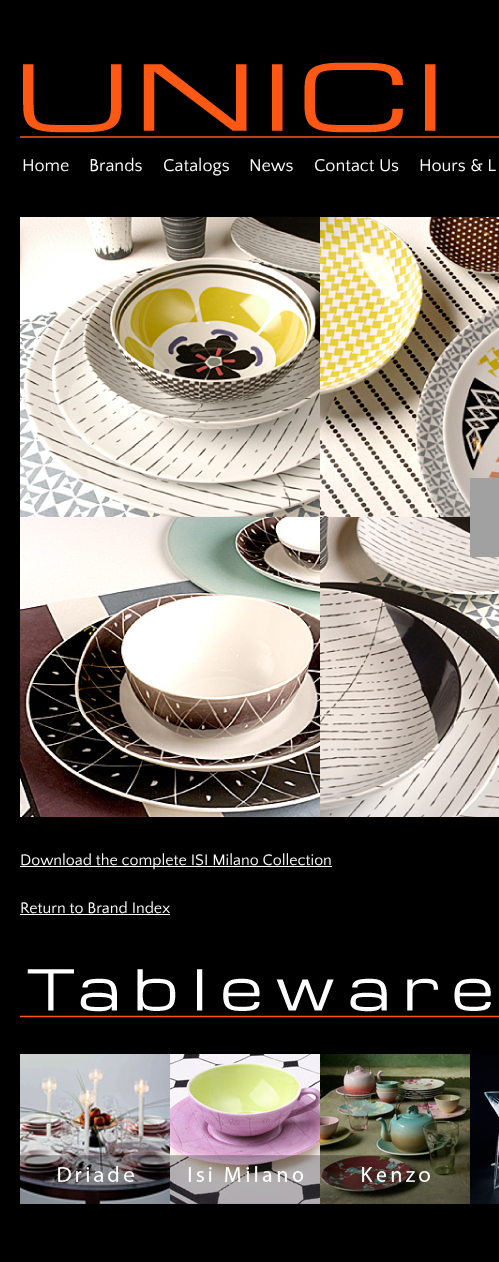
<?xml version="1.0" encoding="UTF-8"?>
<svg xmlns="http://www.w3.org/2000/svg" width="499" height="1262">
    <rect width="100%" height="100%" fill="#000000"/>
    <image x="20" y="59" width="479" height="79" href="img_01.png"/>
    <text x="22" y="171" font-family="Quattrocento Sans" font-size="18" fill="#FFFFFF">Home</text>
    <text x="89" y="171" font-family="Quattrocento Sans" font-size="18" fill="#FFFFFF">Brands</text>
    <text x="163" y="171" font-family="Quattrocento Sans" font-size="18" fill="#FFFFFF">Catalogs</text>
    <text x="249" y="171" font-family="Quattrocento Sans" font-size="18" fill="#FFFFFF">News</text>
    <text x="314" y="171" font-family="Quattrocento Sans" font-size="18" fill="#FFFFFF">Contact Us</text>
    <text x="419" y="171" font-family="Quattrocento Sans" font-size="18" fill="#FFFFFF">Hours &amp; L</text>
    <image x="20" y="217" width="479" height="600" href="img_02.png"/>
    <rect x="20" y="866" width="312" height="1" fill="#FFFFFF"/>
    <text x="20" y="865" font-family="Quattrocento Sans" font-size="16" fill="#FFFFFF">Download the complete ISI Milano Collection</text>
    <text x="20" y="913" font-family="Quattrocento Sans" font-size="16" fill="#FFFFFF">Return to Brand Index</text>
    <rect x="20" y="914" width="150" height="1" fill="#FFFFFF"/>
    <image x="20" y="969" width="479" height="49" href="img_03.png"/>
    <image x="20" y="1054" width="150" height="150" href="img_04.png"/>
    <image x="170" y="1054" width="150" height="150" href="img_05.png"/>
    <image x="320" y="1054" width="150" height="150" href="img_06.png"/>
    <image x="470" y="1054" width="29" height="150" href="img_07.png"/>
</svg>
